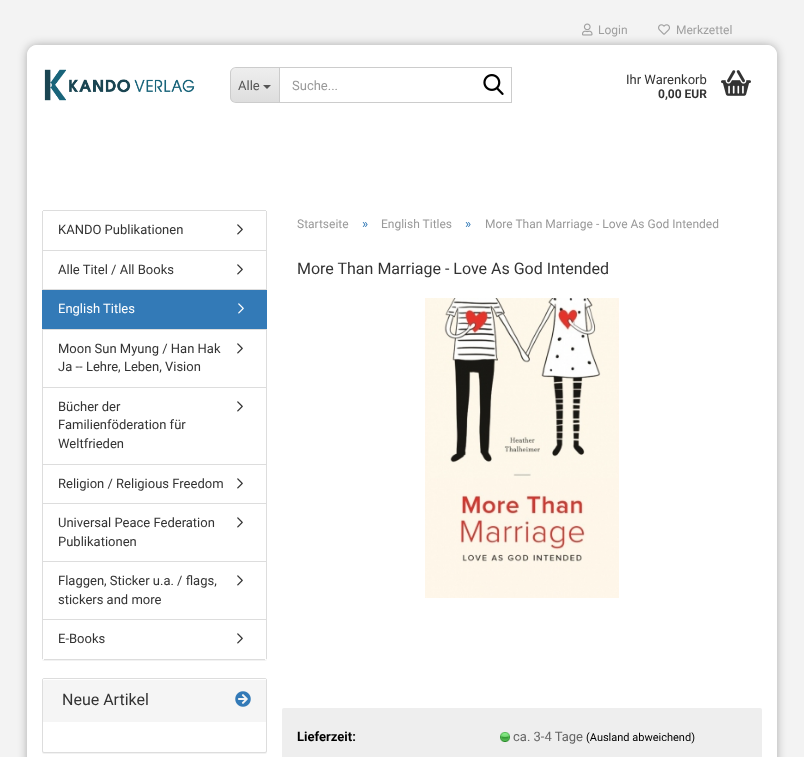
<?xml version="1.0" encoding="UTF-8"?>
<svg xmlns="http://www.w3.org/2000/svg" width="804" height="757">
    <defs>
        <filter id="blur1" x="-50%" y="-200%" width="200%" height="500%"><feGaussianBlur stdDeviation="5"/></filter>
        <clipPath id="clip1"><path d="M 236 67 H 279 V 103 H 236 C 232.5 103 230 100.5 230 97 V 73 C 230 69.5 232.5 67 236 67 Z"/></clipPath>
        <linearGradient id="g1" gradientUnits="userSpaceOnUse" x1="255" y1="68" x2="255" y2="102"><stop offset="0" stop-color="#EEEEEE"/><stop offset="1" stop-color="#DEDEDE"/></linearGradient>
        <filter id="blur2" x="-50%" y="-200%" width="200%" height="500%"><feGaussianBlur stdDeviation="0.5"/></filter>
    </defs>
    <rect width="100%" height="100%" fill="#F3F3F3"/>
    <rect x="27" y="45" width="750" height="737" rx="10" fill="#000000" fill-opacity="0.3" filter="url(#blur1)"/>
    <rect x="27" y="45" width="750" height="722" rx="10" fill="#FFFFFF"/>
    <path d="M 37 45 H 767 C 772.5 45 777 49.5 777 55 V 193 C 777 194 776 195 775 195 H 29 C 28 195 27 194 27 193 V 55 C 27 49.5 31.5 45 37 45 Z" fill="#FFFFFF"/>
    <image x="582" y="23" width="11" height="13" href="img_01.png"/>
    <text x="598" y="34" font-family="Roboto" font-size="12" fill="#9F9F9F">Login</text>
    <image x="658" y="24" width="12" height="11" href="img_02.png"/>
    <text x="676" y="34" font-family="Roboto" font-size="12" fill="#9F9F9F">Merkzettel</text>
    <image x="44" y="69" width="151" height="32" href="img_03.png"/>
    <g clip-path="url(#clip1)">
        <rect x="230" y="68" width="49" height="34" fill="url(#g1)"/>
    </g>
    <path d="M 236 67 H 279 V 103 H 236 C 233 103 230 100 230 97 V 73 C 230 70 233 67 236 67 Z M 236 68 H 279 V 102 H 236 C 233 102 231 100 231 97 V 73 C 231 70 233 68 236 68 Z" fill="#CCCCCC" fill-rule="evenodd"/>
    <text x="238" y="90" font-family="Roboto" font-size="13" fill="#555555">Alle</text>
    <path d="M 263 85 H 271 L 267 89 Z" fill="#555555"/>
    <rect x="279.5" y="67.5" width="232" height="35" fill="none" stroke="#CCCCCC"/>
    <text x="292" y="90" font-family="Roboto" font-size="13" fill="#999999">Suche...</text>
    <image x="483" y="74" width="21" height="21" href="img_04.png"/>
    <text x="626" y="84" font-family="Roboto" font-size="13" fill="#333333">Ihr Warenkorb</text>
    <text x="658" y="98" font-family="Roboto" font-size="12" font-weight="700" fill="#333333">0,00 EUR</text>
    <image x="721" y="70" width="30" height="26" href="img_05.png"/>
    <rect x="42" y="211" width="225" height="450" rx="2" fill="#000000" fill-opacity="0.05" filter="url(#blur2)"/>
    <rect x="42" y="210" width="225" height="450" rx="2" fill="#FFFFFF"/>
    <rect x="43" y="210" width="223" height="1" fill="#DDDDDD"/>
    <rect x="266" y="211" width="1" height="448" fill="#DDDDDD"/>
    <rect x="42" y="211" width="1" height="448" fill="#DDDDDD"/>
    <rect x="43" y="250" width="223" height="1" fill="#DDDDDD"/>
    <text x="58" y="234" font-family="Roboto" font-size="13" fill="#333333">KANDO Publikationen</text>
    <image x="237" y="224" width="6" height="11" href="img_06.png"/>
    <rect x="43" y="289" width="223" height="1" fill="#DDDDDD"/>
    <text x="58" y="274" font-family="Roboto" font-size="13" fill="#333333">Alle Titel / All Books</text>
    <image x="237" y="264" width="6" height="11" href="img_06.png"/>
    <rect x="43" y="329" width="223" height="1" fill="#DDDDDD"/>
    <rect x="42" y="290" width="225" height="39" fill="#337AB7"/>
    <text x="58" y="313" font-family="Roboto" font-size="13" fill="#FFFFFF">English Titles</text>
    <image x="238" y="303" width="6" height="11" href="img_07.png"/>
    <rect x="43" y="387" width="223" height="1" fill="#DDDDDD"/>
    <text x="58" y="353" font-family="Roboto" font-size="13" fill="#333333">Moon Sun Myung / Han Hak</text>
    <image x="237" y="343" width="6" height="11" href="img_06.png"/>
    <text x="58" y="371" font-family="Roboto" font-size="13" fill="#333333">Ja -- Lehre, Leben, Vision</text>
    <rect x="43" y="464" width="223" height="1" fill="#DDDDDD"/>
    <text x="58" y="411" font-family="Roboto" font-size="13" fill="#333333">Bücher der</text>
    <image x="237" y="401" width="6" height="11" href="img_06.png"/>
    <text font-family="Roboto" font-size="13" fill="#333333">
        <tspan x="58" y="429">Familienföderation für</tspan>
        <tspan x="58" y="448">Weltfrieden</tspan>
    </text>
    <rect x="43" y="503" width="223" height="1" fill="#DDDDDD"/>
    <text x="58" y="488" font-family="Roboto" font-size="13" fill="#333333">Religion / Religious Freedom</text>
    <image x="237" y="478" width="6" height="11" href="img_06.png"/>
    <rect x="43" y="561" width="223" height="1" fill="#DDDDDD"/>
    <text x="58" y="527" font-family="Roboto" font-size="13" fill="#333333">Universal Peace Federation</text>
    <image x="237" y="517" width="6" height="11" href="img_06.png"/>
    <text x="58" y="546" font-family="Roboto" font-size="13" fill="#333333">Publikationen</text>
    <rect x="43" y="619" width="223" height="1" fill="#DDDDDD"/>
    <text x="58" y="585" font-family="Roboto" font-size="13" fill="#333333">Flaggen, Sticker u.a. / flags,</text>
    <image x="237" y="575" width="6" height="11" href="img_06.png"/>
    <text x="58" y="604" font-family="Roboto" font-size="13" fill="#333333">stickers and more</text>
    <rect x="44" y="659" width="221" height="1" fill="#DDDDDD"/>
    <text x="58" y="643" font-family="Roboto" font-size="13" fill="#333333">E-Books</text>
    <image x="237" y="633" width="6" height="11" href="img_06.png"/>
    <rect x="42" y="679" width="225" height="75" rx="2" fill="#000000" fill-opacity="0.05" filter="url(#blur2)"/>
    <rect x="42.5" y="678.5" width="224" height="74" rx="1.5" fill="#FFFFFF" stroke="#DDDDDD"/>
    <path d="M 44 679 H 265 C 265.5 679 266 679.5 266 680 V 722 H 43 V 680 C 43 679.5 43.5 679 44 679 Z" fill="#F5F5F5"/>
    <path d="M 44 680 H 266 V 681 V 679 H 44 C 43 679 43 680 43 681 Z" fill="#FFFFFF"/>
    <text x="62" y="705" font-family="Roboto" font-size="16" fill="#333333">Neue Artikel</text>
    <image x="235" y="691" width="16" height="16" href="img_08.png"/>
    <text x="297" y="228" font-family="Roboto" font-size="12" fill="#999999">Startseite</text>
    <text x="362" y="228" font-family="Roboto" font-size="13" fill="#337AB7">»</text>
    <text x="381" y="228" font-family="Roboto" font-size="12" fill="#999999">English Titles</text>
    <text x="465" y="228" font-family="Roboto" font-size="13" fill="#337AB7">»</text>
    <text x="485" y="228" font-family="Roboto" font-size="12" fill="#999999">More Than Marriage - Love As God Intended</text>
    <text x="297" y="274" font-family="Roboto" font-size="16" fill="#333333">More Than Marriage - Love As God Intended</text>
    <image x="425" y="298" width="194" height="300" href="img_09.png"/>
    <rect x="282" y="708" width="480" height="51" rx="2" fill="#EEEEEE"/>
    <text x="297" y="741" font-family="Roboto" font-size="13" font-weight="700" fill="#000000">Lieferzeit:</text>
    <image x="500" y="732" width="10" height="10" href="img_10.png"/>
    <text x="513" y="741" font-family="Roboto" font-size="13" fill="#666666">ca. 3-4 Tage</text>
    <text x="586" y="741" font-family="Roboto" font-size="11" fill="#000000">(Ausland abweichend)</text>
</svg>
